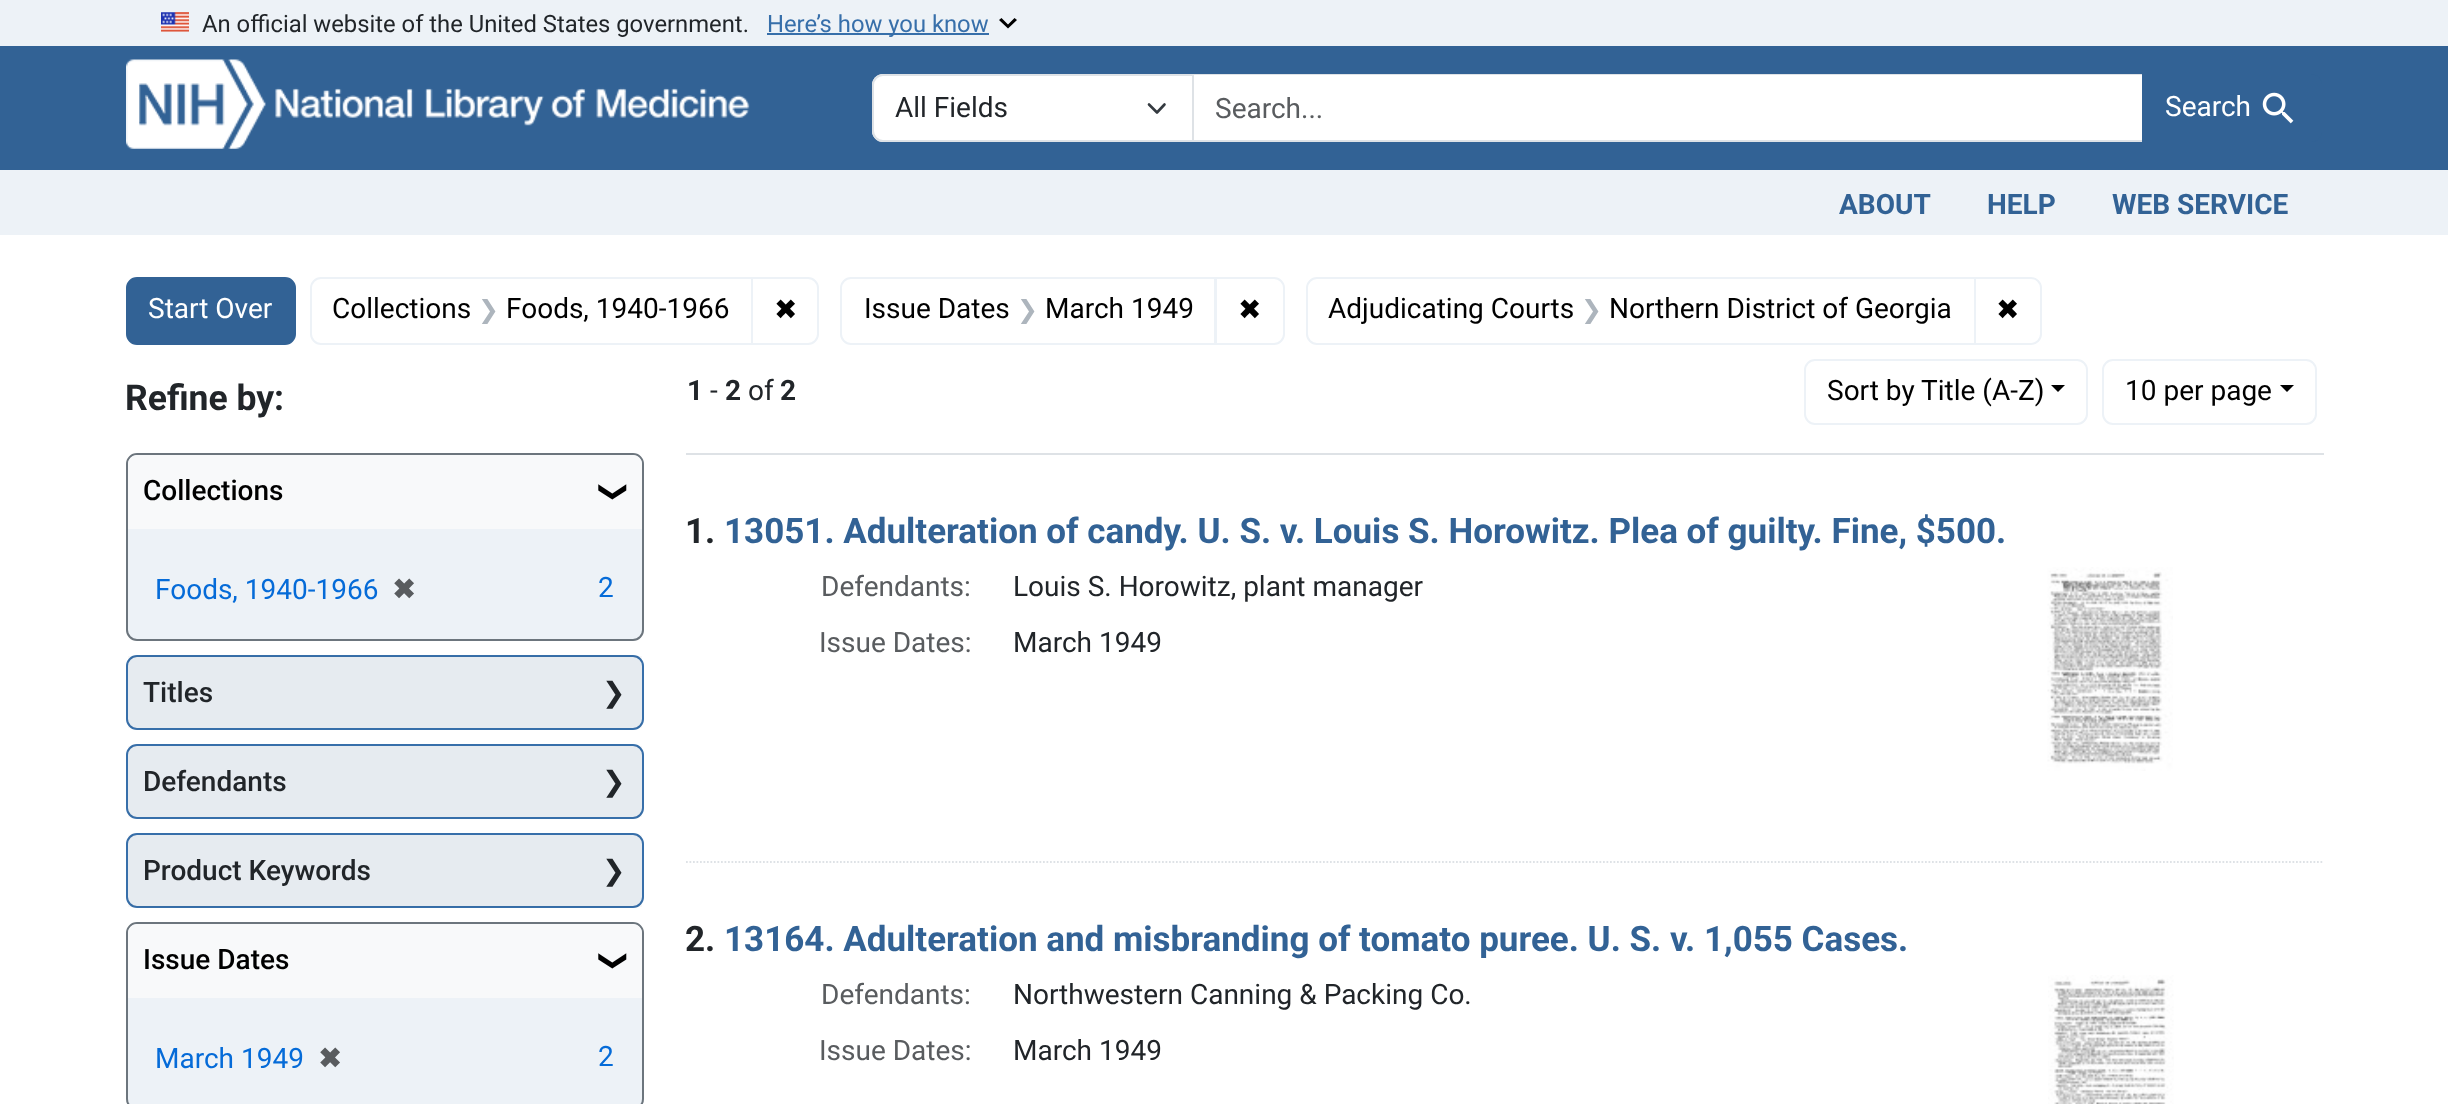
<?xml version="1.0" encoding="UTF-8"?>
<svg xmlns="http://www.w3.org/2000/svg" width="2448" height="1104">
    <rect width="100%" height="100%" fill="#FFFFFF"/>
    <rect x="0" y="0" width="2448" height="46" fill="#EDF2F7"/>
    <image x="161" y="12" width="28" height="20" href="img_01.png"/>
    <text x="202" y="32" font-family="Roboto" font-size="23.8" fill="#212529">An official website of the United States government.</text>
    <rect x="767" y="33" width="222" height="2" fill="#376FAA"/>
    <text x="767" y="32" font-family="Roboto" font-size="23.8" fill="#376FAA">Here’s how you know</text>
    <path d="M 1014.5 18 L 1008 24.5 L 1001.5 18 L 999 20 L 1008 28.5 L 1017 20 Z" fill="#000000"/>
    <rect x="0" y="46" width="2448" height="124" fill="#326295"/>
    <image x="126" y="59" width="624" height="90" href="img_02.png"/>
    <path d="M 883 74 H 1194 V 142 H 883 C 877 142 872 137 872 131 V 85 C 872 79 877 74 883 74 Z" fill="#FFFFFF"/>
    <path d="M 1149 104.5 L 1157 112.5 L 1164.5 104.5" fill="none" stroke="#343A40" stroke-width="2.6" stroke-linecap="round" stroke-linejoin="round"/>
    <path d="M 883 75 H 1193 V 141 H 883 C 877.5 141 873 136.5 873 131 V 85 C 873 79.5 877.5 75 883 75 Z" fill="none" stroke="#DEE2E6" stroke-width="2"/>
    <text x="895" y="117" font-family="Roboto" font-size="28" fill="#212529">All Fields</text>
    <rect x="1193" y="75" width="950" height="66" fill="none" stroke="#DEE2E6" stroke-width="2"/>
    <rect x="1194" y="75" width="948" height="65" fill="#FFFFFF"/>
    <text x="1215" y="118" font-family="Roboto" font-size="28" fill="#595C5F">Search...</text>
    <path d="M 2142 74 H 2311 C 2317 74 2322 79 2322 85 V 131 C 2322 137 2317 142 2311 142 H 2142 Z" fill="#326295"/>
    <text x="2165" y="116" font-family="Roboto" font-size="28" fill="#FFFFFF">Search</text>
    <image x="2262" y="92" width="32" height="32" href="img_03.png"/>
    <rect x="0" y="170" width="2448" height="65" fill="#EDF2F7"/>
    <text x="1839" y="214" font-family="Roboto" font-size="28" font-weight="700" fill="#326295">ABOUT</text>
    <text x="1987" y="214" font-family="Roboto" font-size="28" font-weight="700" fill="#326295">HELP</text>
    <text x="2112" y="214" font-family="Roboto" font-size="28" font-weight="700" fill="#326295">WEB SERVICE</text>
    <rect x="127" y="278" width="168" height="66" rx="10" fill="#326295" stroke="#326295" stroke-width="2"/>
    <text x="148" y="318" font-family="Roboto" font-size="28" fill="#FFFFFF">Start Over</text>
    <path d="M 321 278 H 752 V 344 H 321 C 315.5 344 311 339.5 311 334 V 288 C 311 282.5 315.5 278 321 278 Z" fill="none" stroke="#EDF2F7" stroke-width="2"/>
    <text x="332" y="318" font-family="Roboto" font-size="28" fill="#000000">Collections</text>
    <text x="478" y="318" font-family="DejaVu Sans" font-size="25" fill="#ADB5BD">❯</text>
    <text x="506" y="318" font-family="Roboto" font-size="28" fill="#000000">Foods, 1940-1966</text>
    <path d="M 752 278 H 808 C 813.5 278 818 282.5 818 288 V 334 C 818 339.5 813.5 344 808 344 H 752 Z" fill="none" stroke="#EDF2F7" stroke-width="2"/>
    <text x="774" y="319" font-family="DejaVu Sans" font-size="28" fill="#000000">✖</text>
    <path d="M 851 278 H 1215 V 344 H 851 C 845.5 344 841 339.5 841 334 V 288 C 841 282.5 845.5 278 851 278 Z" fill="none" stroke="#EDF2F7" stroke-width="2"/>
    <text x="864" y="318" font-family="Roboto" font-size="28" fill="#000000">Issue Dates</text>
    <text x="1017" y="318" font-family="DejaVu Sans" font-size="25" fill="#ADB5BD">❯</text>
    <text x="1045" y="318" font-family="Roboto" font-size="28" fill="#000000">March 1949</text>
    <path d="M 1216 278 H 1274 C 1279.5 278 1284 282.5 1284 288 V 334 C 1284 339.5 1279.5 344 1274 344 H 1216 Z" fill="none" stroke="#EDF2F7" stroke-width="2"/>
    <text x="1238" y="319" font-family="DejaVu Sans" font-size="28" fill="#000000">✖</text>
    <path d="M 1317 278 H 1975 V 344 H 1317 C 1311.5 344 1307 339.5 1307 334 V 288 C 1307 282.5 1311.5 278 1317 278 Z" fill="none" stroke="#EDF2F7" stroke-width="2"/>
    <text x="1328" y="318" font-family="Roboto" font-size="28" fill="#000000">Adjudicating Courts</text>
    <text x="1581" y="318" font-family="DejaVu Sans" font-size="25" fill="#ADB5BD">❯</text>
    <text x="1609" y="318" font-family="Roboto" font-size="28" fill="#000000">Northern District of Georgia</text>
    <path d="M 1975 278 H 2031 C 2036.5 278 2041 282.5 2041 288 V 334 C 2041 339.5 2036.5 344 2031 344 H 1975 Z" fill="none" stroke="#EDF2F7" stroke-width="2"/>
    <text x="1996" y="319" font-family="DejaVu Sans" font-size="28" fill="#000000">✖</text>
    <text x="125" y="410" font-family="Roboto" font-size="35.5" font-weight="700" fill="#212529">Refine by:</text>
    <rect x="127" y="454" width="516" height="186" rx="10" fill="#EDF2F7" stroke="#6C757D" stroke-width="2"/>
    <path d="M 137 455 H 633 C 638 455 642 459 642 464 V 529 H 128 V 464 C 128 459 132 455 137 455 Z" fill="#F8F9FA"/>
    <text x="143" y="500" font-family="Roboto" font-size="28" font-weight="500" fill="#000000">Collections</text>
    <text x="605" y="480" transform="rotate(90 605 480)" font-family="DejaVu Sans" font-size="28" fill="#000000">❯</text>
    <text x="155" y="599" font-family="Roboto" font-size="28" fill="#056BD8">Foods, 1940-1966</text>
    <text x="392" y="599" font-family="DejaVu Sans" font-size="28" font-weight="700" fill="#595C5F">✖</text>
    <text x="598" y="597" font-family="Roboto" font-size="28" fill="#056BD8">2</text>
    <rect x="127" y="656" width="516" height="73" rx="10" fill="#EDF2F7" stroke="#376FAA" stroke-width="2"/>
    <rect x="128" y="656" width="514" height="72" fill="#212529" fill-opacity="0.03"/>
    <text x="143" y="702" font-family="Roboto" font-size="28" font-weight="500" fill="#212529">Titles</text>
    <text x="602" y="702" font-family="DejaVu Sans" font-size="28" fill="#212529">❯</text>
    <rect x="127" y="745" width="516" height="73" rx="10" fill="#EDF2F7" stroke="#376FAA" stroke-width="2"/>
    <rect x="128" y="746" width="514" height="71" fill="#212529" fill-opacity="0.03"/>
    <text x="143" y="791" font-family="Roboto" font-size="28" font-weight="500" fill="#212529">Defendants</text>
    <text x="602" y="791" font-family="DejaVu Sans" font-size="28" fill="#212529">❯</text>
    <rect x="127" y="834" width="516" height="73" rx="10" fill="#EDF2F7" stroke="#376FAA" stroke-width="2"/>
    <rect x="128" y="835" width="514" height="72" fill="#212529" fill-opacity="0.03"/>
    <text x="143" y="880" font-family="Roboto" font-size="28" font-weight="500" fill="#212529">Product Keywords</text>
    <text x="602" y="880" font-family="DejaVu Sans" font-size="28" fill="#212529">❯</text>
    <rect x="127" y="923" width="516" height="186" rx="10" fill="#EDF2F7" stroke="#6C757D" stroke-width="2"/>
    <path d="M 137 924 H 633 C 638 924 642 928 642 933 V 998 H 128 V 933 C 128 928 132 924 137 924 Z" fill="#F8F9FA"/>
    <text x="143" y="969" font-family="Roboto" font-size="28" font-weight="500" fill="#000000">Issue Dates</text>
    <text x="605" y="949" transform="rotate(90 605 949)" font-family="DejaVu Sans" font-size="28" fill="#000000">❯</text>
    <text x="155" y="1068" font-family="Roboto" font-size="28" fill="#056BD8">March 1949</text>
    <text x="318" y="1068" font-family="DejaVu Sans" font-size="28" font-weight="700" fill="#595C5F">✖</text>
    <text x="598" y="1066" font-family="Roboto" font-size="28" fill="#056BD8">2</text>
    <rect x="686" y="453" width="1638" height="2" fill="#DEE2E6"/>
    <text x="687" y="400" font-family="Roboto" font-size="28" font-weight="700" fill="#212529">1</text>
    <text x="710" y="400" font-family="Roboto" font-size="28" fill="#212529">-</text>
    <text x="725" y="400" font-family="Roboto" font-size="28" font-weight="700" fill="#212529">2</text>
    <text x="748" y="400" font-family="Roboto" font-size="28" fill="#212529">of</text>
    <text x="780" y="400" font-family="Roboto" font-size="28" font-weight="700" fill="#212529">2</text>
    <rect x="1805" y="360" width="282" height="64" rx="10" fill="none" stroke="#EDF2F7" stroke-width="2"/>
    <text x="1827" y="400" font-family="Roboto" font-size="28" fill="#000000">Sort by Title (A-Z)</text>
    <path d="M 2051 385 H 2065 L 2058 392 Z" fill="#000000"/>
    <rect x="2103" y="360" width="213" height="64" rx="10" fill="none" stroke="#EDF2F7" stroke-width="2"/>
    <text x="2125" y="400" font-family="Roboto" font-size="28" fill="#000000">10 per page</text>
    <path d="M 2280 385 H 2294 L 2287 392 Z" fill="#000000"/>
    <path d="M 686 862 H 2324" fill="none" stroke="#DEE2E6" stroke-width="1.8" stroke-dasharray="1.75 1.75"/>
    <text x="685" y="543" font-family="Roboto" font-size="35" font-weight="700" fill="#212529">1.</text>
    <text x="724" y="543" font-family="Roboto" font-size="35" font-weight="700" fill="#326295">13051. Adulteration of candy. U. S. v. Louis S. Horowitz. Plea of guilty. Fine, $500.</text>
    <text x="821" y="596" font-family="Roboto" font-size="28" fill="#595C5F">Defendants:</text>
    <text x="1013" y="596" font-family="Roboto" font-size="28" fill="#212529">Louis S. Horowitz, plant manager</text>
    <text x="819" y="652" font-family="Roboto" font-size="28" fill="#595C5F">Issue Dates:</text>
    <text x="1013" y="652" font-family="Roboto" font-size="28" fill="#212529">March 1949</text>
    <image x="2047" y="567" width="126" height="204" href="img_04.png"/>
    <text x="685" y="951" font-family="Roboto" font-size="35" font-weight="700" fill="#212529">2.</text>
    <text x="724" y="951" font-family="Roboto" font-size="35" font-weight="700" fill="#326295">13164. Adulteration and misbranding of tomato puree. U. S. v. 1,055 Cases.</text>
    <text x="821" y="1004" font-family="Roboto" font-size="28" fill="#595C5F">Defendants:</text>
    <text x="1013" y="1004" font-family="Roboto" font-size="28" fill="#212529">Northwestern Canning &amp; Packing Co.</text>
    <text x="819" y="1060" font-family="Roboto" font-size="28" fill="#595C5F">Issue Dates:</text>
    <text x="1013" y="1060" font-family="Roboto" font-size="28" fill="#212529">March 1949</text>
    <image x="2048" y="975" width="126" height="129" href="img_05.png"/>
</svg>
